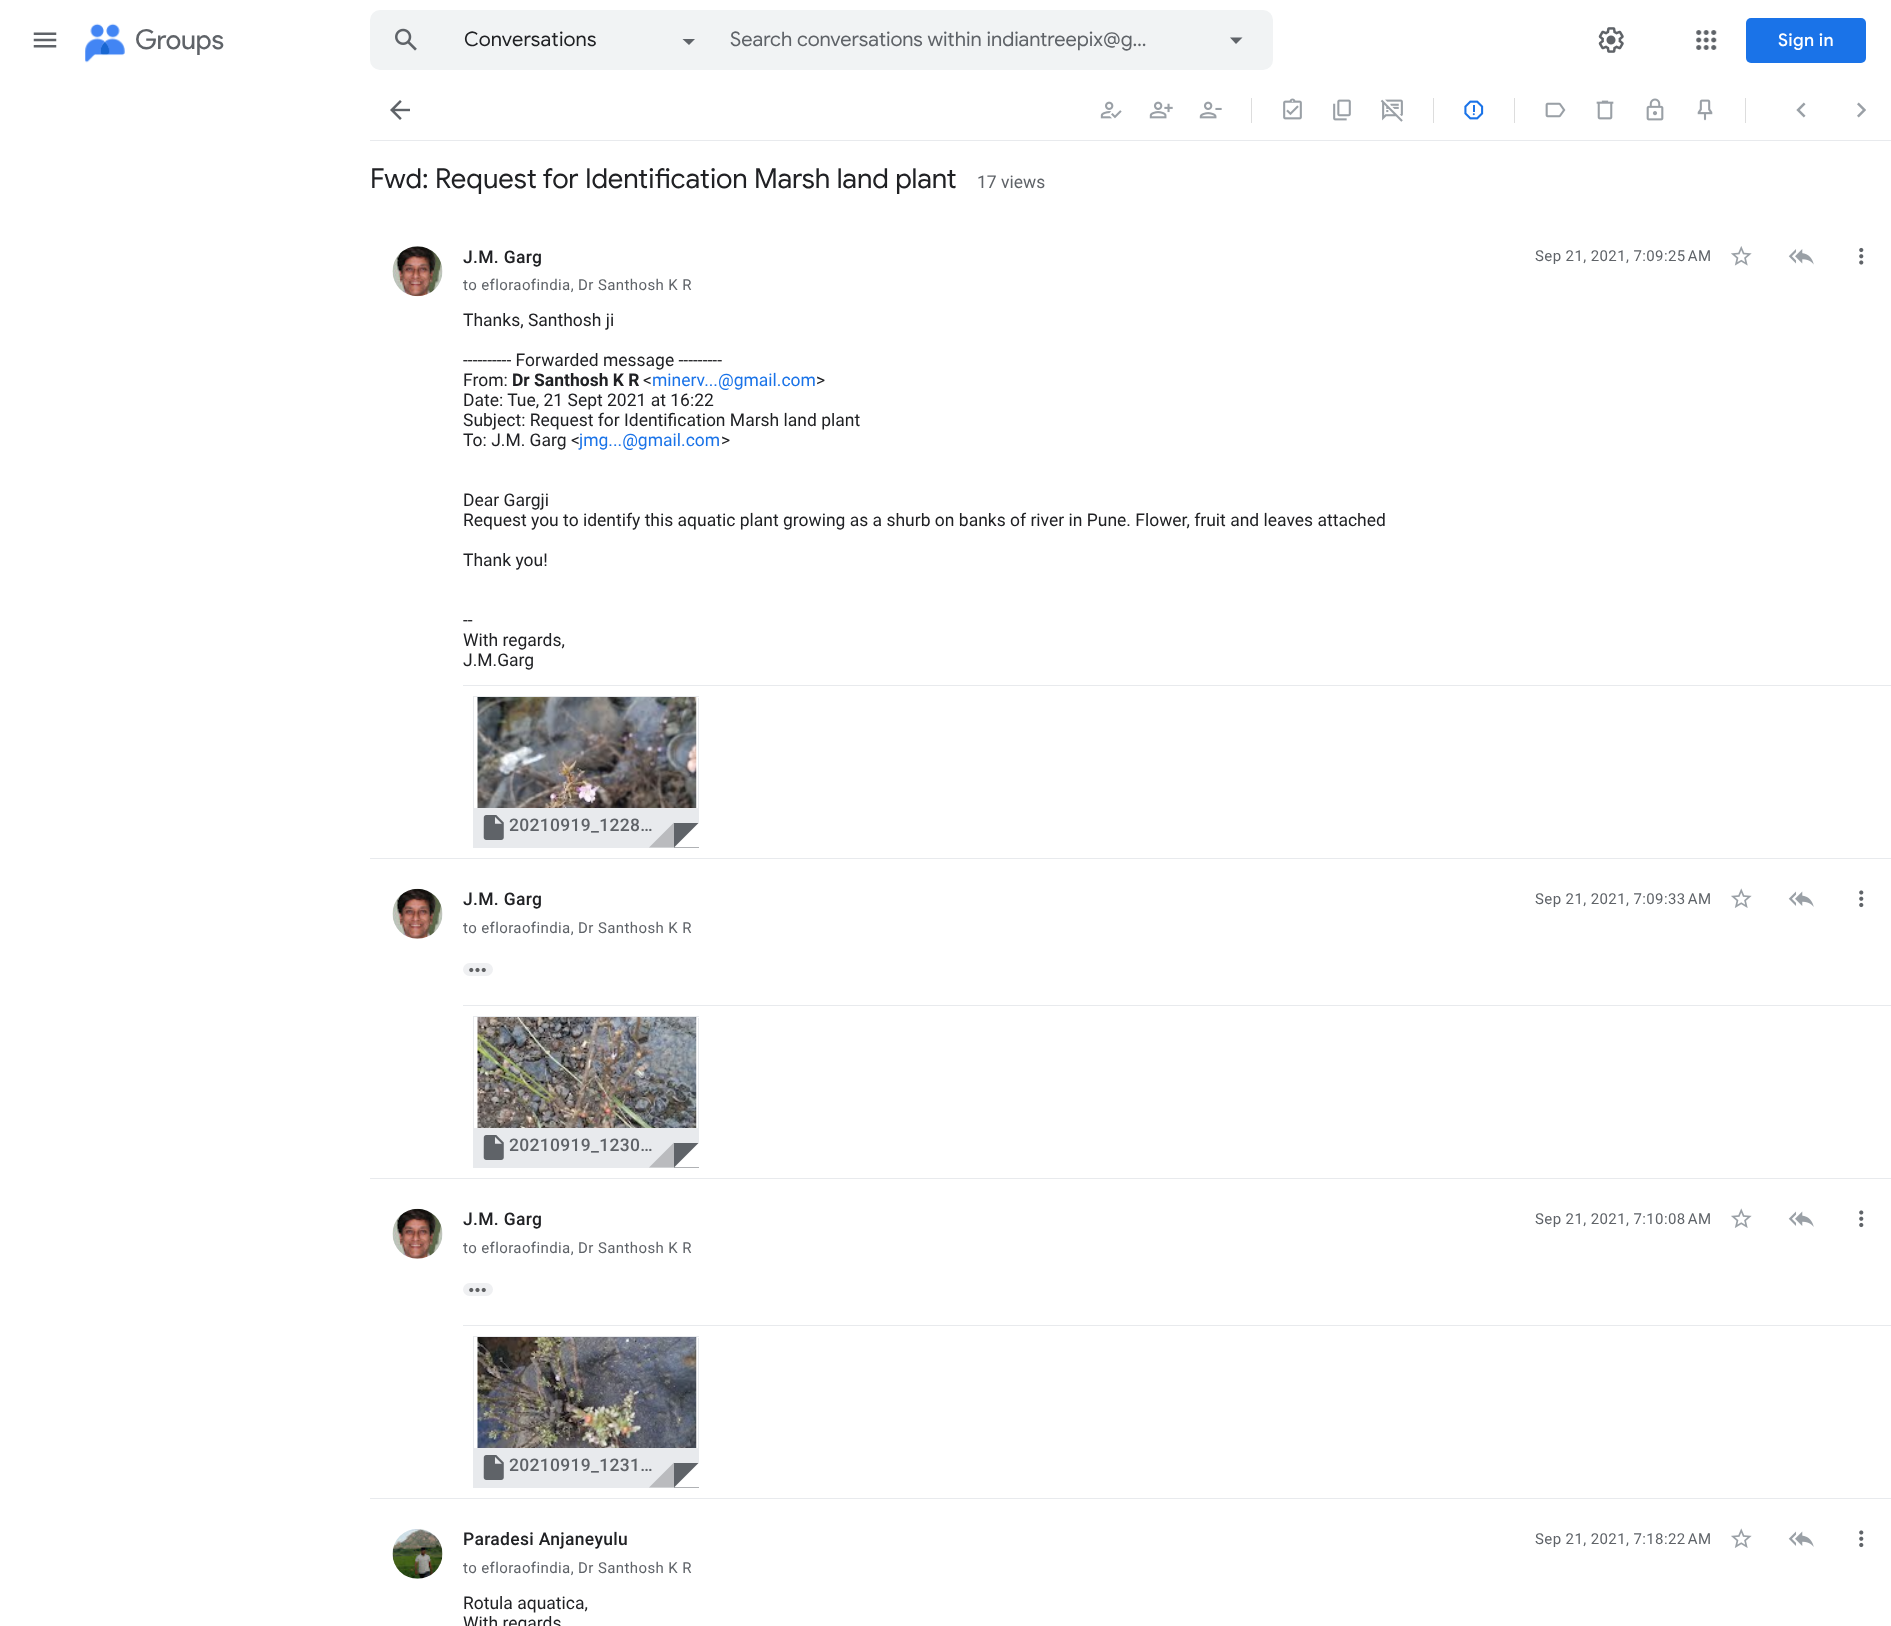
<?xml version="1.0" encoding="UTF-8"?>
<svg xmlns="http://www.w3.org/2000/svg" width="1891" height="1626">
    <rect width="100%" height="100%" fill="#FFFFFF"/>
    <image x="33" y="32" width="24" height="16" href="img_01.png"/>
    <image x="85" y="23" width="40" height="40" href="img_02.png"/>
    <text x="135" y="49" font-family="Product Sans" font-size="27.5" fill="#5F6368">Groups</text>
    <rect x="370" y="10" width="903" height="60" rx="10" fill="#F1F3F4"/>
    <image x="395" y="28" width="22" height="23" href="img_03.png"/>
    <text x="464" y="46" font-family="Google Sans" font-size="20" letter-spacing="0.25" fill="#202124">Conversations</text>
    <path d="M 682.5 39 H 695 L 689 45 Z" fill="#5F6368"/>
    <text x="730" y="46" font-family="Google Sans" font-size="20" fill="#5F6368">Search conversations within indiantreepix@g…</text>
    <path d="M 1230 37.5 L 1236 44 L 1242.5 37.5 Z" fill="#5F6368"/>
    <image x="1598" y="27" width="26" height="26" href="img_04.png"/>
    <image x="1696" y="30" width="21" height="20" href="img_05.png"/>
    <rect x="1746" y="18" width="120" height="45" rx="5" fill="#1A73E8"/>
    <text x="1778" y="46" font-family="Google Sans" font-size="17.5" font-weight="500" letter-spacing="0.3" fill="#FFFFFF">Sign in</text>
    <rect x="370" y="140" width="1521" height="1" fill="#E8EAED"/>
    <image x="390" y="100" width="20" height="20" href="img_06.png"/>
    <image x="1100" y="101" width="22" height="18" href="img_07.png"/>
    <image x="1149" y="101" width="24" height="18" href="img_08.png"/>
    <image x="1199" y="101" width="23" height="18" href="img_09.png"/>
    <rect x="1251" y="98" width="1" height="25" fill="#DDDDDD"/>
    <image x="1283" y="98" width="19" height="22" href="img_10.png"/>
    <image x="1333" y="99" width="18" height="22" href="img_11.png"/>
    <image x="1380" y="99" width="23" height="23" href="img_12.png"/>
    <rect x="1433" y="98" width="1" height="25" fill="#DDDDDD"/>
    <image x="1464" y="100" width="20" height="20" href="img_13.png"/>
    <rect x="1514" y="98" width="1" height="25" fill="#DDDDDD"/>
    <image x="1545" y="102" width="21" height="16" href="img_14.png"/>
    <image x="1596" y="100" width="18" height="20" href="img_15.png"/>
    <image x="1646" y="98" width="18" height="23" href="img_16.png"/>
    <image x="1697" y="99" width="16" height="22" href="img_17.png"/>
    <rect x="1745" y="98" width="1" height="25" fill="#DDDDDD"/>
    <image x="1796" y="102" width="10" height="16" href="img_18.png"/>
    <image x="1857" y="102" width="9" height="16" href="img_19.png"/>
    <text x="370" y="188" font-family="Google Sans" font-size="27.5" fill="#202124">Fwd: Request for Identification Marsh land plant</text>
    <text x="977" y="188" font-family="Roboto" font-size="17.5" fill="#5F6368">17 views</text>
    <rect x="370" y="858" width="1521" height="1" fill="#E8EAED"/>
    <image x="392" y="246" width="51" height="51" href="img_20.png"/>
    <text x="463" y="263" font-family="Roboto" font-size="17.5" font-weight="500" letter-spacing="0.3" fill="#202124">J.M. Garg</text>
    <text x="1535" y="261" font-family="Roboto" font-size="15" letter-spacing="0.4" fill="#5F6368">Sep 21, 2021, 7:09:25 AM</text>
    <image x="1731" y="246" width="21" height="20" href="img_21.png"/>
    <image x="1788" y="249" width="26" height="16" href="img_22.png"/>
    <image x="1859" y="247" width="5" height="18" href="img_23.png"/>
    <text x="463" y="290" font-family="Roboto" font-size="15" letter-spacing="0.4" fill="#5F6368">to efloraofindia, Dr Santhosh K R</text>
    <text x="463" y="326" font-family="Roboto" font-size="17.5" fill="#202124">Thanks, Santhosh ji</text>
    <text font-family="Roboto" font-size="17.5" fill="#202124">
        <tspan x="463" y="366">---------- Forwarded message ---------</tspan>
        <tspan x="463" y="386">From:</tspan>
    </text>
    <text x="512" y="386" font-family="Roboto" font-size="17.5" font-weight="700" fill="#202124">Dr Santhosh K R</text>
    <text x="643" y="386" font-family="Roboto" font-size="17.5" fill="#202124">&lt;</text>
    <text x="652" y="386" font-family="Roboto" font-size="17.5" fill="#1A73E8">minerv...@gmail.com</text>
    <text x="816" y="386" font-family="Roboto" font-size="17.5" fill="#202124">&gt;</text>
    <text font-family="Roboto" font-size="17.5" fill="#202124">
        <tspan x="463" y="406">Date: Tue, 21 Sept 2021 at 16:22</tspan>
        <tspan x="463" y="426">Subject: Request for Identification Marsh land plant</tspan>
        <tspan x="463" y="446">To: J.M. Garg &lt;</tspan>
    </text>
    <text x="579" y="446" font-family="Roboto" font-size="17.5" fill="#1A73E8">jmg...@gmail.com</text>
    <text x="721" y="446" font-family="Roboto" font-size="17.5" fill="#202124">&gt;</text>
    <text font-family="Roboto" font-size="17.5" fill="#202124">
        <tspan x="463" y="506">Dear Gargji</tspan>
        <tspan x="463" y="526">Request you to identify this aquatic plant growing as a shurb on banks of river in Pune. Flower, fruit and leaves attached</tspan>
    </text>
    <text x="463" y="566" font-family="Roboto" font-size="17.5" fill="#202124">Thank you!</text>
    <text font-family="Roboto" font-size="17.5" fill="#202124">
        <tspan x="463" y="626">--</tspan>
        <tspan x="463" y="646">With regards,</tspan>
        <tspan x="463" y="666">J.M.Garg</tspan>
    </text>
    <rect x="463" y="685" width="1428" height="1" fill="#E8EAED"/>
    <image x="477" y="697" width="220" height="111" href="img_24.png"/>
    <rect x="473" y="696" width="226" height="1" fill="#E8EAED"/>
    <rect x="473" y="696" width="1" height="152" fill="#E8EAED"/>
    <rect x="698" y="698" width="1" height="125" fill="#E8EAED"/>
    <rect x="474" y="808" width="224" height="40" fill="#E8EAED"/>
    <image x="483" y="815" width="21" height="25" href="img_25.png"/>
    <text x="509" y="831" font-family="Roboto" font-size="17.5" font-weight="500" letter-spacing="0.3" fill="#5F6368">20210919_1228…</text>
    <path d="M 649 847.5 H 674 V 822.5 Z" fill="#BABBBE"/>
    <rect x="674" y="823" width="25" height="25" fill="#5F6368"/>
    <path d="M 674 847.5 H 699 V 822.5 Z" fill="#FFFFFF"/>
    <rect x="370" y="1178" width="1521" height="1" fill="#E8EAED"/>
    <image x="392" y="888" width="51" height="51" href="img_26.png"/>
    <text x="463" y="905" font-family="Roboto" font-size="17.5" font-weight="500" letter-spacing="0.3" fill="#202124">J.M. Garg</text>
    <text x="1535" y="904" font-family="Roboto" font-size="15" letter-spacing="0.4" fill="#5F6368">Sep 21, 2021, 7:09:33 AM</text>
    <image x="1731" y="888" width="21" height="20" href="img_27.png"/>
    <image x="1788" y="891" width="26" height="16" href="img_28.png"/>
    <image x="1859" y="890" width="5" height="18" href="img_29.png"/>
    <text x="463" y="933" font-family="Roboto" font-size="15" letter-spacing="0.4" fill="#5F6368">to efloraofindia, Dr Santhosh K R</text>
    <rect x="463" y="963" width="30" height="13" rx="6.5" fill="#EFF0F2"/>
    <image x="469" y="967" width="17" height="6" href="img_30.png"/>
    <rect x="463" y="1005" width="1428" height="1" fill="#E8EAED"/>
    <image x="477" y="1017" width="220" height="111" href="img_31.png"/>
    <rect x="473" y="1016" width="226" height="1" fill="#E8EAED"/>
    <rect x="473" y="1016" width="1" height="152" fill="#E8EAED"/>
    <rect x="698" y="1018" width="1" height="125" fill="#E8EAED"/>
    <rect x="474" y="1128" width="224" height="40" fill="#E8EAED"/>
    <image x="483" y="1135" width="21" height="25" href="img_25.png"/>
    <text x="509" y="1151" font-family="Roboto" font-size="17.5" font-weight="500" letter-spacing="0.3" fill="#5F6368">20210919_1230…</text>
    <path d="M 649 1167.5 H 674 V 1142.5 Z" fill="#BABBBE"/>
    <rect x="674" y="1143" width="25" height="25" fill="#5F6368"/>
    <path d="M 674 1167.5 H 699 V 1142.5 Z" fill="#FFFFFF"/>
    <rect x="370" y="1498" width="1521" height="1" fill="#E8EAED"/>
    <image x="392" y="1208" width="51" height="51" href="img_26.png"/>
    <text x="463" y="1225" font-family="Roboto" font-size="17.5" font-weight="500" letter-spacing="0.3" fill="#202124">J.M. Garg</text>
    <text x="1535" y="1224" font-family="Roboto" font-size="15" letter-spacing="0.4" fill="#5F6368">Sep 21, 2021, 7:10:08 AM</text>
    <image x="1731" y="1208" width="21" height="20" href="img_27.png"/>
    <image x="1788" y="1211" width="26" height="16" href="img_28.png"/>
    <image x="1859" y="1210" width="5" height="18" href="img_29.png"/>
    <text x="463" y="1253" font-family="Roboto" font-size="15" letter-spacing="0.4" fill="#5F6368">to efloraofindia, Dr Santhosh K R</text>
    <rect x="463" y="1283" width="30" height="13" rx="6.5" fill="#EFF0F2"/>
    <image x="469" y="1287" width="17" height="6" href="img_30.png"/>
    <rect x="463" y="1325" width="1428" height="1" fill="#E8EAED"/>
    <image x="477" y="1337" width="220" height="111" href="img_32.png"/>
    <rect x="473" y="1336" width="226" height="1" fill="#E8EAED"/>
    <rect x="473" y="1336" width="1" height="152" fill="#E8EAED"/>
    <rect x="698" y="1338" width="1" height="125" fill="#E8EAED"/>
    <rect x="474" y="1448" width="224" height="40" fill="#E8EAED"/>
    <image x="483" y="1455" width="21" height="25" href="img_25.png"/>
    <text x="509" y="1471" font-family="Roboto" font-size="17.5" font-weight="500" letter-spacing="0.3" fill="#5F6368">20210919_1231…</text>
    <path d="M 649 1487.5 H 674 V 1462.5 Z" fill="#BABBBE"/>
    <rect x="674" y="1463" width="25" height="25" fill="#5F6368"/>
    <path d="M 674 1487.5 H 699 V 1462.5 Z" fill="#FFFFFF"/>
    <image x="392" y="1529" width="51" height="50" href="img_33.png"/>
    <text x="463" y="1545" font-family="Roboto" font-size="17.5" font-weight="500" letter-spacing="0.3" fill="#202124">Paradesi Anjaneyulu</text>
    <text x="1535" y="1544" font-family="Roboto" font-size="15" letter-spacing="0.4" fill="#5F6368">Sep 21, 2021, 7:18:22 AM</text>
    <image x="1731" y="1528" width="21" height="20" href="img_27.png"/>
    <image x="1788" y="1531" width="26" height="16" href="img_28.png"/>
    <image x="1859" y="1530" width="5" height="18" href="img_29.png"/>
    <text x="463" y="1573" font-family="Roboto" font-size="15" letter-spacing="0.4" fill="#5F6368">to efloraofindia, Dr Santhosh K R</text>
    <text font-family="Roboto" font-size="17.5" fill="#202124">
        <tspan x="463" y="1609">Rotula aquatica,</tspan>
        <tspan x="463" y="1629">With regards</tspan>
    </text>
</svg>
